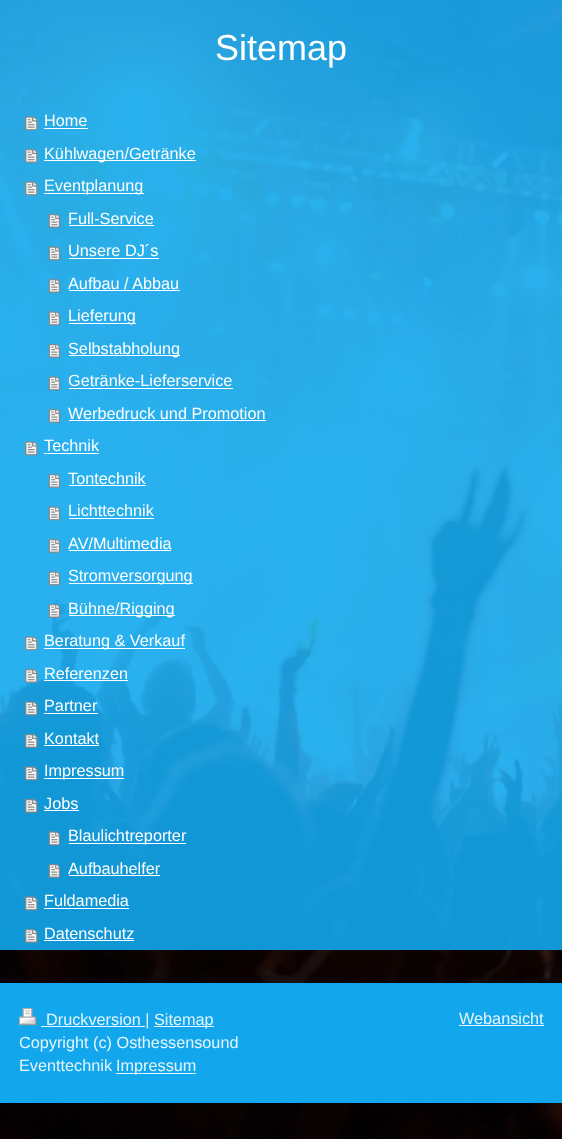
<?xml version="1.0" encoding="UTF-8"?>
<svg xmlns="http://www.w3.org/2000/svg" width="562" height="1139">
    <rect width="100%" height="100%" fill="#FFFFFF"/>
    <image x="0" y="0" width="562" height="1139" href="img_01.png"/>
    <rect x="0" y="0" width="562" height="950" fill="#12A7ED" fill-opacity="0.9"/>
    <text x="215" y="60" font-family="Liberation Sans" font-size="36" fill="#FFFFFF">Sitemap</text>
    <image x="25" y="116" width="13" height="15" href="img_02.png"/>
    <text x="44" y="126" font-family="Liberation Sans" font-size="16.25" fill="#FFFFFF">Home</text>
    <rect x="44" y="128" width="44" height="1" fill="#FFFFFF"/>
    <image x="25" y="148" width="13" height="15" href="img_03.png"/>
    <rect x="44" y="160" width="152" height="1" fill="#FFFFFF"/>
    <text x="44" y="159" font-family="Liberation Sans" font-size="16.25" fill="#FFFFFF">Kühlwagen/Getränke</text>
    <image x="25" y="181" width="13" height="15" href="img_04.png"/>
    <rect x="44" y="193" width="100" height="1" fill="#FFFFFF"/>
    <text x="44" y="191" font-family="Liberation Sans" font-size="16.25" fill="#FFFFFF">Eventplanung</text>
    <image x="48" y="213" width="13" height="15" href="img_05.png"/>
    <text x="68" y="224" font-family="Liberation Sans" font-size="16.25" fill="#FFFFFF">Full-Service</text>
    <rect x="69" y="225" width="85" height="1" fill="#FFFFFF"/>
    <image x="48" y="246" width="13" height="15" href="img_06.png"/>
    <text x="68" y="256" font-family="Liberation Sans" font-size="16.25" fill="#FFFFFF">Unsere DJ´s</text>
    <rect x="69" y="258" width="90" height="1" fill="#FFFFFF"/>
    <image x="48" y="278" width="13" height="15" href="img_07.png"/>
    <text x="68" y="289" font-family="Liberation Sans" font-size="16.25" fill="#FFFFFF">Aufbau / Abbau</text>
    <rect x="69" y="290" width="111" height="1" fill="#FFFFFF"/>
    <image x="48" y="311" width="13" height="15" href="img_08.png"/>
    <rect x="69" y="323" width="67" height="1" fill="#FFFFFF"/>
    <text x="68" y="321" font-family="Liberation Sans" font-size="16.25" fill="#FFFFFF">Lieferung</text>
    <image x="48" y="343" width="13" height="15" href="img_09.png"/>
    <rect x="69" y="355" width="111" height="1" fill="#FFFFFF"/>
    <text x="68" y="354" font-family="Liberation Sans" font-size="16.25" fill="#FFFFFF">Selbstabholung</text>
    <image x="48" y="376" width="13" height="15" href="img_10.png"/>
    <text x="68" y="386" font-family="Liberation Sans" font-size="16.25" fill="#FFFFFF">Getränke-Lieferservice</text>
    <rect x="69" y="388" width="164" height="1" fill="#FFFFFF"/>
    <image x="48" y="408" width="13" height="15" href="img_11.png"/>
    <text x="68" y="419" font-family="Liberation Sans" font-size="16.25" fill="#FFFFFF">Werbedruck und Promotion</text>
    <rect x="69" y="420" width="197" height="1" fill="#FFFFFF"/>
    <image x="25" y="441" width="13" height="15" href="img_12.png"/>
    <text x="44" y="451" font-family="Liberation Sans" font-size="16.25" fill="#FFFFFF">Technik</text>
    <rect x="44" y="453" width="55" height="1" fill="#FFFFFF"/>
    <image x="48" y="473" width="13" height="15" href="img_13.png"/>
    <text x="68" y="484" font-family="Liberation Sans" font-size="16.25" fill="#FFFFFF">Tontechnik</text>
    <rect x="69" y="485" width="77" height="1" fill="#FFFFFF"/>
    <image x="48" y="506" width="13" height="15" href="img_14.png"/>
    <text x="68" y="516" font-family="Liberation Sans" font-size="16.25" fill="#FFFFFF">Lichttechnik</text>
    <rect x="69" y="518" width="85" height="1" fill="#FFFFFF"/>
    <image x="48" y="538" width="13" height="15" href="img_15.png"/>
    <text x="68" y="549" font-family="Liberation Sans" font-size="16.25" fill="#FFFFFF">AV/Multimedia</text>
    <rect x="69" y="550" width="102" height="1" fill="#FFFFFF"/>
    <image x="48" y="571" width="13" height="15" href="img_16.png"/>
    <rect x="69" y="583" width="124" height="1" fill="#FFFFFF"/>
    <text x="68" y="581" font-family="Liberation Sans" font-size="16.25" fill="#FFFFFF">Stromversorgung</text>
    <image x="48" y="603" width="13" height="15" href="img_17.png"/>
    <rect x="69" y="615" width="106" height="1" fill="#FFFFFF"/>
    <text x="68" y="614" font-family="Liberation Sans" font-size="16.25" fill="#FFFFFF">Bühne/Rigging</text>
    <image x="25" y="636" width="13" height="15" href="img_18.png"/>
    <rect x="44" y="648" width="141" height="1" fill="#FFFFFF"/>
    <text x="44" y="646" font-family="Liberation Sans" font-size="16.25" fill="#FFFFFF">Beratung &amp; Verkauf</text>
    <image x="25" y="668" width="13" height="15" href="img_19.png"/>
    <text x="44" y="679" font-family="Liberation Sans" font-size="16.25" fill="#FFFFFF">Referenzen</text>
    <rect x="44" y="680" width="84" height="1" fill="#FFFFFF"/>
    <image x="25" y="701" width="13" height="15" href="img_20.png"/>
    <text x="44" y="711" font-family="Liberation Sans" font-size="16.25" fill="#FFFFFF">Partner</text>
    <rect x="44" y="713" width="54" height="1" fill="#FFFFFF"/>
    <image x="25" y="733" width="13" height="15" href="img_21.png"/>
    <text x="44" y="744" font-family="Liberation Sans" font-size="16.25" fill="#FFFFFF">Kontakt</text>
    <rect x="44" y="745" width="55" height="1" fill="#FFFFFF"/>
    <image x="25" y="766" width="13" height="15" href="img_22.png"/>
    <rect x="44" y="778" width="80" height="1" fill="#FFFFFF"/>
    <text x="44" y="776" font-family="Liberation Sans" font-size="16.25" fill="#FFFFFF">Impressum</text>
    <image x="25" y="798" width="13" height="15" href="img_23.png"/>
    <text x="44" y="809" font-family="Liberation Sans" font-size="16.25" fill="#FFFFFF">Jobs</text>
    <rect x="44" y="810" width="35" height="1" fill="#FFFFFF"/>
    <image x="48" y="831" width="13" height="15" href="img_24.png"/>
    <rect x="69" y="843" width="117" height="1" fill="#FFFFFF"/>
    <text x="68" y="841" font-family="Liberation Sans" font-size="16.25" fill="#FFFFFF">Blaulichtreporter</text>
    <image x="48" y="863" width="13" height="15" href="img_25.png"/>
    <text x="68" y="874" font-family="Liberation Sans" font-size="16.25" fill="#FFFFFF">Aufbauhelfer</text>
    <rect x="69" y="875" width="91" height="1" fill="#FFFFFF"/>
    <image x="25" y="896" width="13" height="15" href="img_26.png"/>
    <text x="44" y="906" font-family="Liberation Sans" font-size="16.25" fill="#FFFFFF">Fuldamedia</text>
    <rect x="44" y="908" width="85" height="1" fill="#FFFFFF"/>
    <image x="25" y="928" width="13" height="15" href="img_27.png"/>
    <text x="44" y="939" font-family="Liberation Sans" font-size="16.25" fill="#FFFFFF">Datenschutz</text>
    <rect x="44" y="940" width="90" height="1" fill="#FFFFFF"/>
    <rect x="0" y="983" width="562" height="120" fill="#12A7ED"/>
    <image x="18" y="1007" width="19" height="19" href="img_28.png"/>
    <rect x="41" y="1026" width="104" height="1" fill="#E7F6FD"/>
    <text x="46" y="1025" font-family="Liberation Sans" font-size="16.25" fill="#E7F6FD">Druckversion |</text>
    <rect x="154" y="1026" width="60" height="1" fill="#E7F6FD"/>
    <text x="154" y="1025" font-family="Liberation Sans" font-size="16.25" fill="#E7F6FD">Sitemap</text>
    <text font-family="Liberation Sans" font-size="16.25" fill="#E7F6FD">
        <tspan x="19" y="1048">Copyright (c) Osthessensound</tspan>
        <tspan x="19" y="1071">Eventtechnik</tspan>
    </text>
    <rect x="116" y="1073" width="80" height="1" fill="#E7F6FD"/>
    <text x="116" y="1071" font-family="Liberation Sans" font-size="16.25" fill="#E7F6FD">Impressum</text>
    <text x="459" y="1024" font-family="Liberation Sans" font-size="16.25" fill="#E7F6FD">Webansicht</text>
    <rect x="459" y="1025" width="85" height="1" fill="#E7F6FD"/>
</svg>
